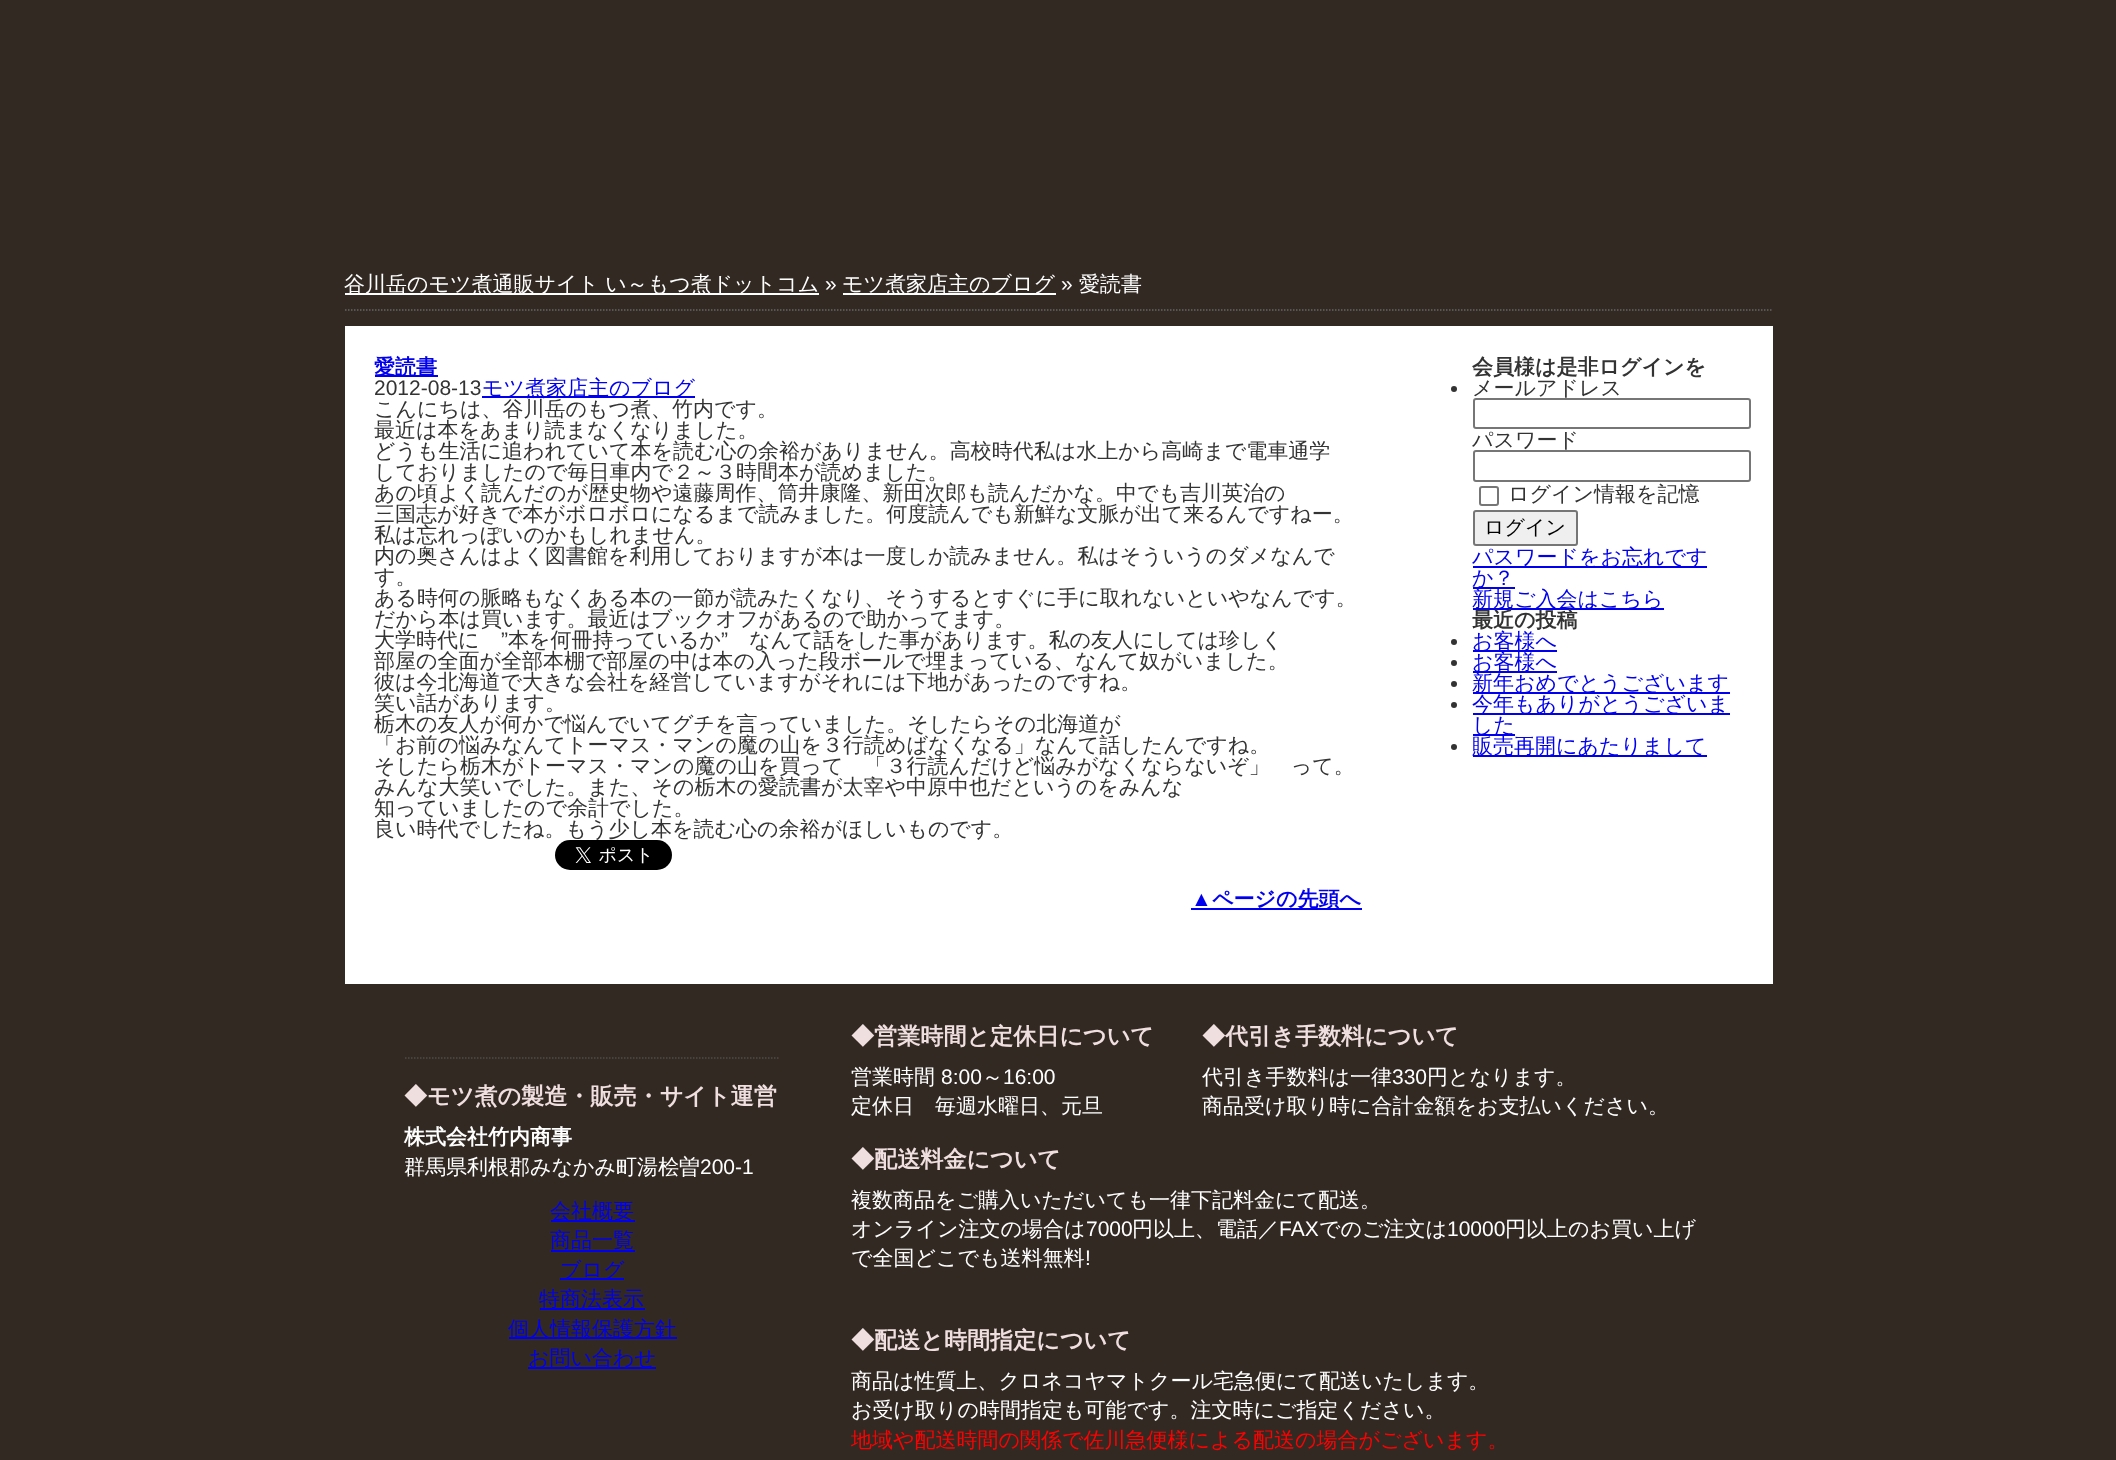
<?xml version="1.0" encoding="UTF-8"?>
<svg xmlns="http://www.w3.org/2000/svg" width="2116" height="1460">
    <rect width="100%" height="100%" fill="#322923"/>
    <path d="M 345 310 H 1773" fill="none" stroke="#666666" stroke-width="1.5" stroke-dasharray="1.5 1.5"/>
    <rect x="345" y="293" width="474" height="2" fill="#FFFFFF"/>
    <text x="344" y="291" font-family="WenQuanYi Zen Hei" font-size="21" font-weight="500" fill="#FFFFFF">谷川岳のモツ煮通販サイト い～もつ煮ドットコム</text>
    <text x="825" y="291" font-family="Liberation Sans" font-size="21" fill="#FFFFFF">»</text>
    <rect x="843" y="293" width="213" height="2" fill="#FFFFFF"/>
    <text x="842" y="291" font-family="WenQuanYi Zen Hei" font-size="21" font-weight="500" fill="#FFFFFF">モツ煮家店主のブログ</text>
    <text x="1061" y="291" font-family="Liberation Sans" font-size="21" fill="#FFFFFF">»</text>
    <text x="1079" y="291" font-family="WenQuanYi Zen Hei" font-size="21" font-weight="500" fill="#FFFFFF">愛読書</text>
    <rect x="345" y="326" width="1428" height="658" fill="#FFFFFF"/>
    <rect x="375" y="375" width="63" height="2" fill="#0000EE"/>
    <text x="374" y="374" font-family="WenQuanYi Zen Hei" font-size="21" font-weight="700" fill="#0000EE">愛読書</text>
    <text x="374" y="395" font-family="Liberation Sans" font-size="21" fill="#333333">2012-08-13</text>
    <rect x="482" y="396" width="213" height="2" fill="#0000EE"/>
    <text x="482" y="395" font-family="WenQuanYi Zen Hei" font-size="21" font-weight="500" fill="#0000EE">モツ煮家店主のブログ</text>
    <text font-family="WenQuanYi Zen Hei" font-size="21" font-weight="500" fill="#333333">
        <tspan x="374" y="416">こんにちは、谷川岳のもつ煮、竹内です。</tspan>
        <tspan x="374" y="437">最近は本をあまり読まなくなりました。</tspan>
        <tspan x="374" y="458">どうも生活に追われていて本を読む心の余裕がありません。高校時代私は水上から高崎まで電車通学</tspan>
        <tspan x="374" y="479">しておりましたので毎日車内で２～３時間本が読めました。</tspan>
        <tspan x="374" y="500">あの頃よく読んだのが歴史物や遠藤周作、筒井康隆、新田次郎も読んだかな。中でも吉川英治の</tspan>
        <tspan x="374" y="521">三国志が好きで本がボロボロになるまで読みました。何度読んでも新鮮な文脈が出て来るんですねー。</tspan>
        <tspan x="374" y="542">私は忘れっぽいのかもしれません。</tspan>
        <tspan x="374" y="563">内の奥さんはよく図書館を利用しておりますが本は一度しか読みません。私はそういうのダメなんで</tspan>
        <tspan x="374" y="584">す。</tspan>
        <tspan x="374" y="605">ある時何の脈略もなくある本の一節が読みたくなり、そうするとすぐに手に取れないといやなんです。</tspan>
        <tspan x="374" y="626">だから本は買います。最近はブックオフがあるので助かってます。</tspan>
        <tspan x="374" y="647">大学時代に</tspan>
    </text>
    <text x="501" y="647" font-family="Liberation Sans" font-size="21" fill="#333333">”</text>
    <text x="508" y="647" font-family="WenQuanYi Zen Hei" font-size="21" font-weight="500" fill="#333333">本を何冊持っているか</text>
    <text x="721" y="647" font-family="Liberation Sans" font-size="21" fill="#333333">”</text>
    <text x="749" y="647" font-family="WenQuanYi Zen Hei" font-size="21" font-weight="500" fill="#333333">なんて話をした事があります。私の友人にしては珍しく</text>
    <text font-family="WenQuanYi Zen Hei" font-size="21" font-weight="500" fill="#333333">
        <tspan x="374" y="668">部屋の全面が全部本棚で部屋の中は本の入った段ボールで埋まっている、なんて奴がいました。</tspan>
        <tspan x="374" y="689">彼は今北海道で大きな会社を経営していますがそれには下地があったのですね。</tspan>
        <tspan x="374" y="710">笑い話があります。</tspan>
        <tspan x="374" y="731">栃木の友人が何かで悩んでいてグチを言っていました。そしたらその北海道が</tspan>
        <tspan x="374" y="752">「お前の悩みなんてトーマス・マンの魔の山を３行読めばなくなる」なんて話したんですね。</tspan>
        <tspan x="374" y="773">そしたら栃木がトーマス・マンの魔の山を買って　「３行読んだけど悩みがなくならないぞ」　って。</tspan>
        <tspan x="374" y="794">みんな大笑いでした。また、その栃木の愛読書が太宰や中原中也だというのをみんな</tspan>
        <tspan x="374" y="815">知っていましたので余計でした。</tspan>
        <tspan x="374" y="836">良い時代でしたね。もう少し本を読む心の余裕がほしいものです。</tspan>
    </text>
    <image x="555" y="840" width="117" height="30" href="img_01.png"/>
    <text x="1191" y="906" font-family="Liberation Sans" font-size="21" font-weight="700" fill="#0000EE">▲</text>
    <rect x="1191" y="908" width="171" height="2" fill="#0000EE"/>
    <text x="1212" y="906" font-family="WenQuanYi Zen Hei" font-size="21" font-weight="700" fill="#0000EE">ページの先頭へ</text>
    <text x="1472" y="374" font-family="WenQuanYi Zen Hei" font-size="21" font-weight="700" fill="#333333">会員様は是非ログインを</text>
    <circle cx="1454" cy="389" r="3" fill="#333333"/>
    <text x="1472" y="395" font-family="WenQuanYi Zen Hei" font-size="21" font-weight="500" fill="#333333">メールアドレス</text>
    <rect x="1474" y="399" width="276" height="29" rx="2" fill="none" stroke="#767676" stroke-width="2"/>
    <text x="1472" y="447" font-family="WenQuanYi Zen Hei" font-size="21" font-weight="500" fill="#333333">パスワード</text>
    <rect x="1474" y="451" width="276" height="30" rx="2" fill="none" stroke="#767676" stroke-width="2"/>
    <rect x="1480" y="487" width="18" height="18" rx="2" fill="none" stroke="#767676" stroke-width="2"/>
    <text x="1508" y="501" font-family="WenQuanYi Zen Hei" font-size="21" font-weight="500" fill="#333333">ログイン情報を記憶</text>
    <rect x="1474" y="511" width="103" height="34" rx="2" fill="#EFEFEF" stroke="#767676" stroke-width="2"/>
    <text x="1484" y="534" font-family="WenQuanYi Zen Hei" font-size="20" font-weight="500" fill="#000000">ログイン</text>
    <rect x="1473" y="566" width="234" height="2" fill="#0000EE"/>
    <text x="1472" y="564" font-family="WenQuanYi Zen Hei" font-size="21" font-weight="500" fill="#0000EE">パスワードをお忘れです</text>
    <rect x="1473" y="587" width="42" height="2" fill="#0000EE"/>
    <text x="1472" y="585" font-family="WenQuanYi Zen Hei" font-size="21" font-weight="500" fill="#0000EE">か？</text>
    <rect x="1473" y="608" width="191" height="2" fill="#0000EE"/>
    <text x="1472" y="606" font-family="WenQuanYi Zen Hei" font-size="21" font-weight="500" fill="#0000EE">新規ご入会はこちら</text>
    <text x="1472" y="627" font-family="WenQuanYi Zen Hei" font-size="21" font-weight="700" fill="#333333">最近の投稿</text>
    <circle cx="1454" cy="642" r="3" fill="#333333"/>
    <rect x="1473" y="650" width="84" height="2" fill="#0000EE"/>
    <text x="1472" y="648" font-family="WenQuanYi Zen Hei" font-size="21" font-weight="500" fill="#0000EE">お客様へ</text>
    <circle cx="1454" cy="663" r="3" fill="#333333"/>
    <rect x="1473" y="671" width="84" height="2" fill="#0000EE"/>
    <text x="1472" y="669" font-family="WenQuanYi Zen Hei" font-size="21" font-weight="500" fill="#0000EE">お客様へ</text>
    <circle cx="1454" cy="684" r="3" fill="#333333"/>
    <rect x="1473" y="692" width="257" height="2" fill="#0000EE"/>
    <text x="1472" y="690" font-family="WenQuanYi Zen Hei" font-size="21" font-weight="500" fill="#0000EE">新年おめでとうございます</text>
    <circle cx="1454" cy="705" r="3" fill="#333333"/>
    <rect x="1473" y="713" width="257" height="2" fill="#0000EE"/>
    <text x="1472" y="711" font-family="WenQuanYi Zen Hei" font-size="21" font-weight="500" fill="#0000EE">今年もありがとうございま</text>
    <rect x="1473" y="734" width="42" height="2" fill="#0000EE"/>
    <text x="1472" y="732" font-family="WenQuanYi Zen Hei" font-size="21" font-weight="500" fill="#0000EE">した</text>
    <circle cx="1454" cy="747" r="3" fill="#333333"/>
    <rect x="1473" y="755" width="234" height="2" fill="#0000EE"/>
    <text x="1472" y="753" font-family="WenQuanYi Zen Hei" font-size="21" font-weight="500" fill="#0000EE">販売再開にあたりまして</text>
    <path d="M 405 1058 H 780" fill="none" stroke="#4E4B49" stroke-width="1.5" stroke-dasharray="1.5 1.5"/>
    <text x="404" y="1104" font-family="WenQuanYi Zen Hei" font-size="23.1" font-weight="700" fill="#F0DFDF">◆モツ煮の製造・販売・サイト運営</text>
    <text x="404" y="1144" font-family="WenQuanYi Zen Hei" font-size="21" font-weight="700" fill="#FFFFFF">株式会社竹内商事</text>
    <text x="404" y="1174" font-family="WenQuanYi Zen Hei" font-size="21" font-weight="500" fill="#FFFFFF">群馬県利根郡みなかみ町湯桧曽</text>
    <text x="700" y="1174" font-family="Liberation Sans" font-size="21" fill="#FFFFFF">200-1</text>
    <rect x="551" y="1220" width="84" height="2" fill="#0000EE"/>
    <text font-family="WenQuanYi Zen Hei" font-size="21" font-weight="500" fill="#0000EE">
        <tspan x="550" y="1218">会社概要</tspan>
        <tspan x="550" y="1247">商品一覧</tspan>
    </text>
    <rect x="551" y="1250" width="84" height="2" fill="#0000EE"/>
    <rect x="560" y="1278" width="64" height="2" fill="#0000EE"/>
    <text x="560" y="1277" font-family="WenQuanYi Zen Hei" font-size="21" font-weight="500" fill="#0000EE">ブログ</text>
    <rect x="540" y="1308" width="105" height="2" fill="#0000EE"/>
    <text x="539" y="1306" font-family="WenQuanYi Zen Hei" font-size="21" font-weight="500" fill="#0000EE">特商法表示</text>
    <rect x="509" y="1337" width="168" height="2" fill="#0000EE"/>
    <text x="508" y="1336" font-family="WenQuanYi Zen Hei" font-size="21" font-weight="500" fill="#0000EE">個人情報保護方針</text>
    <rect x="528" y="1367" width="128" height="2" fill="#0000EE"/>
    <text x="528" y="1365" font-family="WenQuanYi Zen Hei" font-size="21" font-weight="500" fill="#0000EE">お問い合わせ</text>
    <text x="851" y="1044" font-family="WenQuanYi Zen Hei" font-size="23.1" font-weight="700" fill="#F0DFDF">◆営業時間と定休日について</text>
    <text x="851" y="1084" font-family="WenQuanYi Zen Hei" font-size="21" font-weight="500" fill="#FFFFFF">営業時間</text>
    <text x="941" y="1084" font-family="Liberation Sans" font-size="21" fill="#FFFFFF">8:00</text>
    <text x="982" y="1084" font-family="WenQuanYi Zen Hei" font-size="21" font-weight="500" fill="#FFFFFF">～</text>
    <text x="1003" y="1084" font-family="Liberation Sans" font-size="21" fill="#FFFFFF">16:00</text>
    <text x="851" y="1113" font-family="WenQuanYi Zen Hei" font-size="21" font-weight="500" fill="#FFFFFF">定休日　毎週水曜日、元旦</text>
    <text x="1202" y="1044" font-family="WenQuanYi Zen Hei" font-size="23.1" font-weight="700" fill="#F0DFDF">◆代引き手数料について</text>
    <text x="1202" y="1084" font-family="WenQuanYi Zen Hei" font-size="21" font-weight="500" fill="#FFFFFF">代引き手数料は一律</text>
    <text x="1392" y="1084" font-family="Liberation Sans" font-size="21" fill="#FFFFFF">330</text>
    <text x="1427" y="1084" font-family="WenQuanYi Zen Hei" font-size="21" font-weight="500" fill="#FFFFFF">円となります。</text>
    <text x="1202" y="1113" font-family="WenQuanYi Zen Hei" font-size="21" font-weight="500" fill="#FFFFFF">商品受け取り時に合計金額をお支払いください。</text>
    <text x="851" y="1167" font-family="WenQuanYi Zen Hei" font-size="23.1" font-weight="700" fill="#F0DFDF">◆配送料金について</text>
    <text font-family="WenQuanYi Zen Hei" font-size="21" font-weight="500" fill="#FFFFFF">
        <tspan x="851" y="1207">複数商品をご購入いただいても一律下記料金にて配送。</tspan>
        <tspan x="851" y="1236">オンライン注文の場合は</tspan>
    </text>
    <text x="1086" y="1236" font-family="Liberation Sans" font-size="21" fill="#FFFFFF">7000</text>
    <text x="1132" y="1236" font-family="WenQuanYi Zen Hei" font-size="21" font-weight="500" fill="#FFFFFF">円以上、電話／</text>
    <text x="1279" y="1236" font-family="Liberation Sans" font-size="21" fill="#FFFFFF">FAX</text>
    <text x="1319" y="1236" font-family="WenQuanYi Zen Hei" font-size="21" font-weight="500" fill="#FFFFFF">でのご注文は</text>
    <text x="1447" y="1236" font-family="Liberation Sans" font-size="21" fill="#FFFFFF">10000</text>
    <text x="1505" y="1236" font-family="WenQuanYi Zen Hei" font-size="21" font-weight="500" fill="#FFFFFF">円以上のお買い上げ</text>
    <text x="851" y="1265" font-family="WenQuanYi Zen Hei" font-size="21" font-weight="500" fill="#FFFFFF">で全国どこでも送料無料</text>
    <text x="1085" y="1265" font-family="Liberation Sans" font-size="21" fill="#FFFFFF">!</text>
    <text x="851" y="1348" font-family="WenQuanYi Zen Hei" font-size="23.1" font-weight="700" fill="#F0DFDF">◆配送と時間指定について</text>
    <text font-family="WenQuanYi Zen Hei" font-size="21" font-weight="500" fill="#FFFFFF">
        <tspan x="851" y="1388">商品は性質上、クロネコヤマトクール宅急便にて配送いたします。</tspan>
        <tspan x="851" y="1417">お受け取りの時間指定も可能です。注文時にご指定ください。</tspan>
    </text>
    <text x="851" y="1447" font-family="WenQuanYi Zen Hei" font-size="21" font-weight="500" fill="#FF0000">地域や配送時間の関係で佐川急便様による配送の場合がございます。</text>
</svg>
